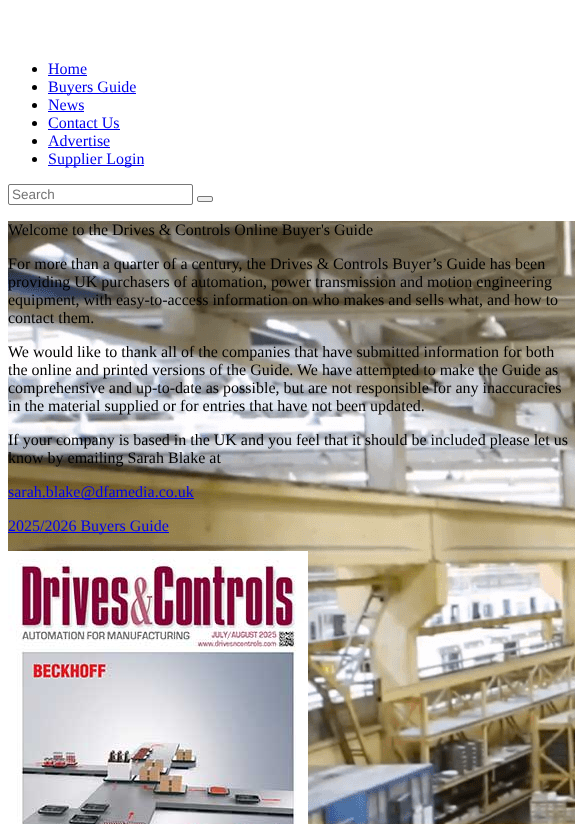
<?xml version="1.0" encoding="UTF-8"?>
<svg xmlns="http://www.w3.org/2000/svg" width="583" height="824">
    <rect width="100%" height="100%" fill="#FFFFFF"/>
    <circle cx="34.5" cy="69.5" r="2.5" fill="#000000"/>
    <text x="48" y="74" font-family="Liberation Serif" font-size="16" fill="#0000EE">Home</text>
    <rect x="48" y="75" width="39" height="1" fill="#0000EE"/>
    <circle cx="34.5" cy="87.5" r="2.5" fill="#000000"/>
    <rect x="48" y="93" width="88" height="1" fill="#0000EE"/>
    <text x="48" y="92" font-family="Liberation Serif" font-size="16" fill="#0000EE">Buyers Guide</text>
    <circle cx="34.5" cy="105.5" r="2.5" fill="#000000"/>
    <text x="48" y="110" font-family="Liberation Serif" font-size="16" fill="#0000EE">News</text>
    <rect x="48" y="111" width="36" height="1" fill="#0000EE"/>
    <circle cx="34.5" cy="123.5" r="2.5" fill="#000000"/>
    <text x="48" y="128" font-family="Liberation Serif" font-size="16" fill="#0000EE">Contact Us</text>
    <rect x="48" y="129" width="72" height="1" fill="#0000EE"/>
    <circle cx="34.5" cy="141.5" r="2.5" fill="#000000"/>
    <text x="48" y="146" font-family="Liberation Serif" font-size="16" fill="#0000EE">Advertise</text>
    <rect x="48" y="147" width="62" height="1" fill="#0000EE"/>
    <circle cx="34.5" cy="159.5" r="2.5" fill="#000000"/>
    <rect x="48" y="165" width="96" height="1" fill="#0000EE"/>
    <text x="48" y="164" font-family="Liberation Serif" font-size="16" fill="#0000EE">Supplier Login</text>
    <rect x="8.5" y="184.5" width="184" height="20" rx="1.5" fill="none" stroke="#767676"/>
    <text x="12" y="199" font-family="Liberation Sans" font-size="13.5" fill="#757575">Search</text>
    <rect x="197.5" y="196.5" width="15" height="5" rx="1.5" fill="#EFEFEF" stroke="#767676"/>
    <image x="8" y="221" width="567" height="603" href="img_01.png"/>
    <text x="8" y="235" font-family="Liberation Serif" font-size="16" fill="#000000">Welcome to the Drives &amp; Controls Online Buyer's Guide</text>
    <text font-family="Liberation Serif" font-size="16" fill="#000000">
        <tspan x="8" y="269">For more than a quarter of a century, the Drives &amp; Controls Buyer’s Guide has been</tspan>
        <tspan x="8" y="287">providing UK purchasers of automation, power transmission and motion engineering</tspan>
        <tspan x="8" y="305">equipment, with easy-to-access information on who makes and sells what, and how to</tspan>
        <tspan x="8" y="323">contact them.</tspan>
    </text>
    <text font-family="Liberation Serif" font-size="16" fill="#000000">
        <tspan x="8" y="357">We would like to thank all of the companies that have submitted information for both</tspan>
        <tspan x="8" y="375">the online and printed versions of the Guide. We have attempted to make the Guide as</tspan>
        <tspan x="8" y="393">comprehensive and up-to-date as possible, but are not responsible for any inaccuracies</tspan>
        <tspan x="8" y="411">in the material supplied or for entries that have not been updated.</tspan>
    </text>
    <text font-family="Liberation Serif" font-size="16" fill="#000000">
        <tspan x="8" y="445">If your company is based in the UK and you feel that it should be included please let us</tspan>
        <tspan x="8" y="463">know by emailing Sarah Blake at</tspan>
    </text>
    <rect x="8" y="498" width="186" height="1" fill="#0000EE"/>
    <text x="8" y="497" font-family="Liberation Serif" font-size="16" fill="#0000EE">sarah.blake@dfamedia.co.uk</text>
    <rect x="8" y="532" width="161" height="1" fill="#0000EE"/>
    <text x="8" y="531" font-family="Liberation Serif" font-size="16" fill="#0000EE">2025/2026 Buyers Guide</text>
    <image x="8" y="551" width="300" height="273" href="img_02.png"/>
</svg>
